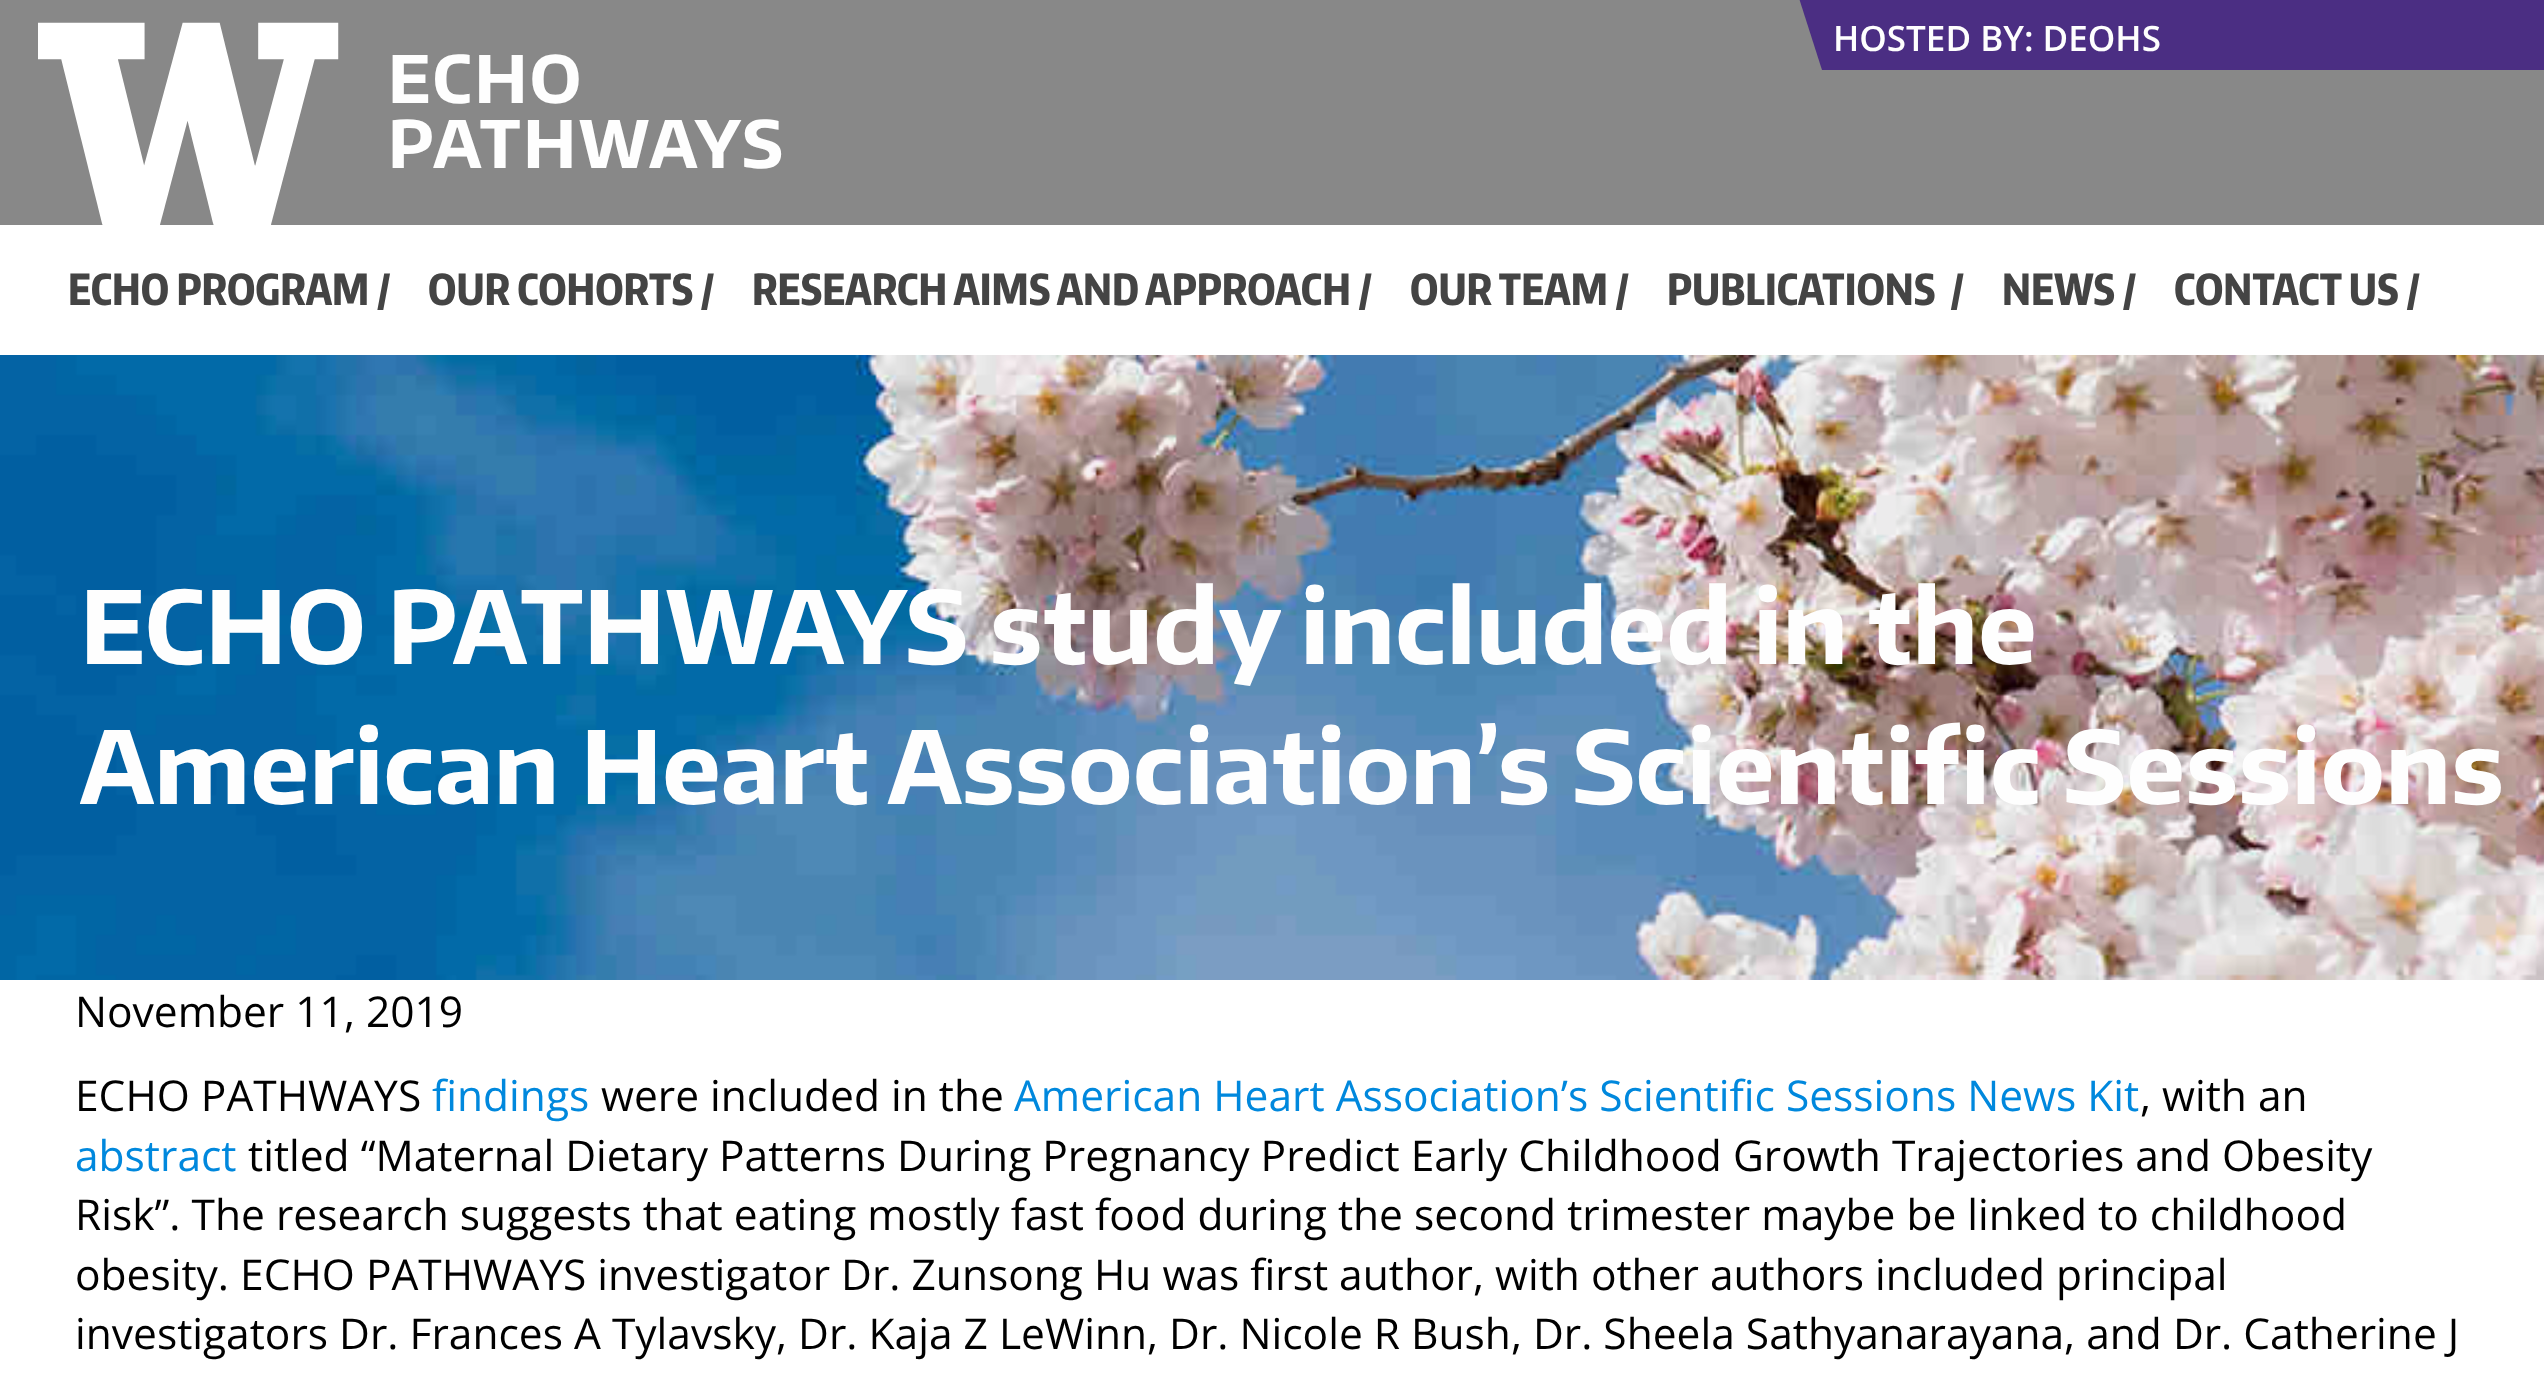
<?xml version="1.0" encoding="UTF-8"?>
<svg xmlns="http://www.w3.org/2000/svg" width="2544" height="1381">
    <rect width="100%" height="100%" fill="#FFFFFF"/>
    <rect x="0" y="0" width="2544" height="225" fill="#888888"/>
    <image x="38" y="22" width="301" height="203" href="img_01.png"/>
    <path d="M 2544 70 L 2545 -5 H 1798 L 1822 70 Z" fill="#4B2E83"/>
    <text x="1833" y="51" font-family="Open Sans" font-size="35" font-weight="600" fill="#FEFEFE">HOSTED BY: DEOHS</text>
    <text font-family="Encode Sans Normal" font-size="65" font-weight="700" letter-spacing="2.5" fill="#FEFEFE">
        <tspan x="388" y="103">ECHO</tspan>
        <tspan x="388" y="168">PATHWAYS</tspan>
    </text>
    <text x="68" y="305" font-family="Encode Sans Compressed" font-size="42.5" font-weight="800" fill="#444444">ECHO PROGRAM /</text>
    <text x="428" y="305" font-family="Encode Sans Compressed" font-size="42.5" font-weight="800" fill="#444444">OUR COHORTS /</text>
    <text x="752" y="305" font-family="Encode Sans Compressed" font-size="42.5" font-weight="800" fill="#444444">RESEARCH AIMS AND APPROACH /</text>
    <text x="1410" y="305" font-family="Encode Sans Compressed" font-size="42.5" font-weight="800" fill="#444444">OUR TEAM /</text>
    <text x="1667" y="305" font-family="Encode Sans Compressed" font-size="42.5" font-weight="800" fill="#444444">PUBLICATIONS</text>
    <text x="1950" y="305" font-family="Encode Sans Compressed" font-size="42.5" font-weight="800" fill="#444444">/</text>
    <text x="2002" y="305" font-family="Encode Sans Compressed" font-size="42.5" font-weight="800" fill="#444444">NEWS /</text>
    <text x="2174" y="305" font-family="Encode Sans Compressed" font-size="42.5" font-weight="800" fill="#444444">CONTACT US /</text>
    <image x="0" y="355" width="2544" height="625" href="img_02.png"/>
    <text font-family="Encode Sans Normal" font-size="100" font-weight="700" fill="#FEFEFE">
        <tspan x="80" y="664">ECHO PATHWAYS study included in the</tspan>
        <tspan x="80" y="804">American Heart Association’s Scientific Sessions</tspan>
    </text>
    <text font-family="Open Sans" font-size="42.5" fill="#000000">
        <tspan x="75" y="1027">November 11, 2019</tspan>
        <tspan x="75" y="1111">ECHO PATHWAYS</tspan>
    </text>
    <text x="432" y="1111" font-family="Open Sans" font-size="42.5" fill="#0088DD">findings</text>
    <text x="601" y="1111" font-family="Open Sans" font-size="42.5" fill="#000000">were included in the</text>
    <text x="1014" y="1111" font-family="Open Sans" font-size="42.5" fill="#0088DD">American Heart Association’s Scientific Sessions News Kit</text>
    <text x="2140" y="1111" font-family="Open Sans" font-size="42.5" fill="#000000">, with an</text>
    <text x="75" y="1171" font-family="Open Sans" font-size="42.5" fill="#0088DD">abstract</text>
    <text x="248" y="1171" font-family="Open Sans" font-size="42.5" fill="#000000">titled “Maternal Dietary Patterns During Pregnancy Predict Early Childhood Growth Trajectories and Obesity</text>
    <text font-family="Open Sans" font-size="42.5" fill="#000000">
        <tspan x="75" y="1230">Risk”. The research suggests that eating mostly fast food during the second trimester maybe be linked to childhood</tspan>
        <tspan x="75" y="1290">obesity. ECHO PATHWAYS investigator Dr. Zunsong Hu was first author, with other authors included principal</tspan>
        <tspan x="75" y="1349">investigators Dr. Frances A Tylavsky, Dr. Kaja Z LeWinn, Dr. Nicole R Bush, Dr. Sheela Sathyanarayana, and Dr. Catherine J</tspan>
    </text>
</svg>
